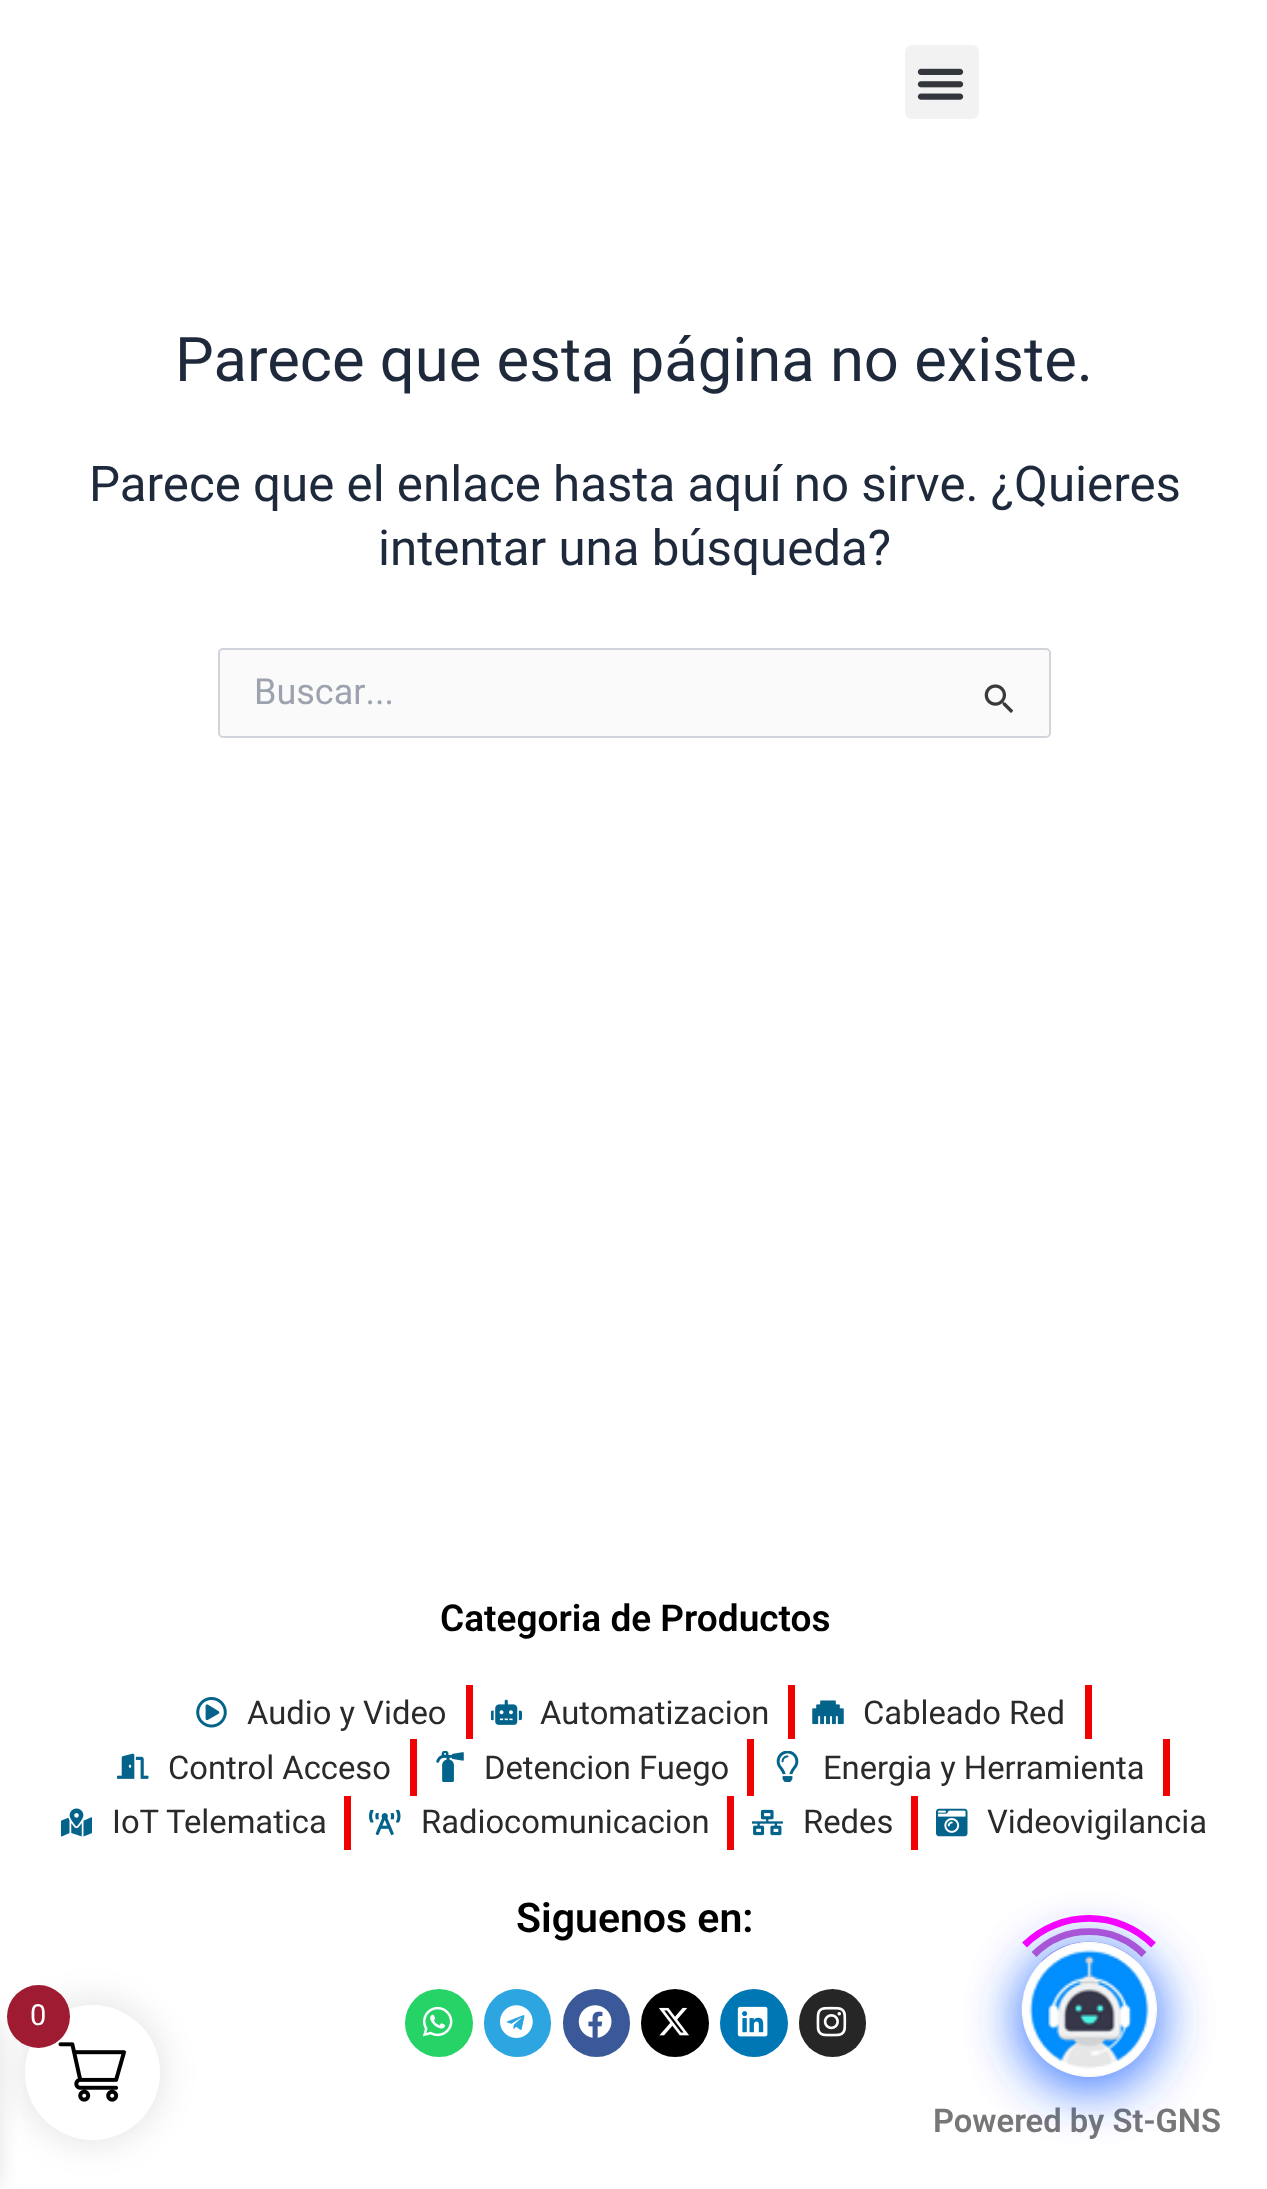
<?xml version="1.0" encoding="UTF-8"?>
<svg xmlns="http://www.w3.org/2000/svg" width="1267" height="2189">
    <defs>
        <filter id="blur1" x="-50%" y="-200%" width="200%" height="500%"><feGaussianBlur stdDeviation="27"/></filter>
        <filter id="blur2" x="-50%" y="-200%" width="200%" height="500%"><feGaussianBlur stdDeviation="11"/></filter>
        <filter id="blur3" x="-50%" y="-200%" width="200%" height="500%"><feGaussianBlur stdDeviation="17"/></filter>
    </defs>
    <rect width="100%" height="100%" fill="#FFFFFF"/>
    <rect x="905" y="45" width="74" height="74" rx="7" fill="#F2F2F2"/>
    <image x="917" y="68" width="47" height="32" href="img_01.png"/>
    <text x="175" y="381" font-family="Roboto" font-size="61.5" fill="#1E293B">Parece que esta página no existe.</text>
    <text x="89" y="501" font-family="Roboto" font-size="49.25" fill="#1E293B">Parece que el enlace hasta aquí no sirve. ¿Quieres</text>
    <text x="378" y="565" font-family="Roboto" font-size="49.25" fill="#1E293B">intentar una búsqueda?</text>
    <rect x="219" y="649" width="831" height="88" rx="4" fill="#FAFAFA" stroke="#D1D5DB" stroke-width="2"/>
    <text x="254" y="704" font-family="Roboto" font-size="36" fill="#9CA3AF">Buscar...</text>
    <image x="984" y="684" width="29" height="29" href="img_02.png"/>
    <text x="440" y="1631" font-family="Roboto" font-size="37" font-weight="600" fill="#000000">Categoria de Productos</text>
    <image x="196" y="1697" width="31" height="31" href="img_03.png"/>
    <text x="247" y="1724" font-family="Roboto" font-size="32.75" fill="#2A2A2A">Audio y Video</text>
    <rect x="466" y="1685" width="7" height="54" fill="#F00202"/>
    <image x="491" y="1699" width="31" height="26" href="img_04.png"/>
    <text x="540" y="1724" font-family="Roboto" font-size="32.75" fill="#2A2A2A">Automatizacion</text>
    <rect x="788" y="1685" width="7" height="54" fill="#F00202"/>
    <image x="812" y="1700" width="32" height="25" href="img_05.png"/>
    <text x="863" y="1724" font-family="Roboto" font-size="32.75" fill="#2A2A2A">Cableado Red</text>
    <rect x="1085" y="1685" width="7" height="54" fill="#F00202"/>
    <image x="117" y="1753" width="32" height="26" href="img_06.png"/>
    <text x="168" y="1779" font-family="Roboto" font-size="32.75" fill="#2A2A2A">Control Acceso</text>
    <rect x="410" y="1739" width="7" height="57" fill="#F00202"/>
    <image x="436" y="1751" width="28" height="31" href="img_07.png"/>
    <text x="484" y="1779" font-family="Roboto" font-size="32.75" fill="#2A2A2A">Detencion Fuego</text>
    <rect x="747" y="1739" width="7" height="57" fill="#F00202"/>
    <image x="776" y="1751" width="23" height="31" href="img_08.png"/>
    <text x="823" y="1779" font-family="Roboto" font-size="32.75" fill="#2A2A2A">Energia y Herramienta</text>
    <rect x="1163" y="1739" width="7" height="57" fill="#F00202"/>
    <image x="61" y="1808" width="31" height="29" href="img_09.png"/>
    <text x="112" y="1833" font-family="Roboto" font-size="32.75" fill="#2A2A2A">IoT Telematica</text>
    <rect x="344" y="1796" width="7" height="54" fill="#F00202"/>
    <image x="369" y="1809" width="32" height="27" href="img_10.png"/>
    <text x="421" y="1833" font-family="Roboto" font-size="32.75" fill="#2A2A2A">Radiocomunicacion</text>
    <rect x="727" y="1796" width="7" height="54" fill="#F00202"/>
    <image x="752" y="1809" width="31" height="27" href="img_11.png"/>
    <text x="803" y="1833" font-family="Roboto" font-size="32.75" fill="#2A2A2A">Redes</text>
    <rect x="911" y="1796" width="7" height="54" fill="#F00202"/>
    <image x="936" y="1808" width="32" height="29" href="img_12.png"/>
    <text x="987" y="1833" font-family="Roboto" font-size="32.75" fill="#2A2A2A">Videovigilancia</text>
    <text x="516" y="1932" font-family="Roboto" font-size="41" font-weight="600" fill="#000000">Siguenos en:</text>
    <circle cx="439" cy="2023" r="34" fill="#25D366"/>
    <image x="422" y="2006" width="31" height="31" href="img_13.png"/>
    <rect x="484" y="1989" width="67" height="68" rx="33.5" fill="#2CA5E0"/>
    <image x="500" y="2005" width="33" height="33" href="img_14.png"/>
    <rect x="563" y="1989" width="67" height="68" rx="33.5" fill="#3B5998"/>
    <image x="578" y="2005" width="34" height="33" href="img_15.png"/>
    <circle cx="675" cy="2023" r="34" fill="#000000"/>
    <image x="659" y="2007" width="30" height="29" href="img_16.png"/>
    <circle cx="754" cy="2023" r="34" fill="#0077B5"/>
    <image x="737" y="2006" width="31" height="31" href="img_17.png"/>
    <rect x="799" y="1989" width="67" height="68" rx="33.5" fill="#262626"/>
    <image x="816" y="2006" width="31" height="31" href="img_18.png"/>
    <text x="933" y="2132" font-family="Roboto" font-size="32.75" font-weight="600" fill="#777777">Powered by St-GNS</text>
    <rect x="1022" y="1951" width="135" height="135" rx="67.5" fill="#004DFF" fill-opacity="0.5" filter="url(#blur1)"/>
    <path d="M 1043.5 1964 C 1068.5 1939 1109.5 1939 1134.5 1964" fill="none" stroke="#9370DB" stroke-width="6.8"/>
    <path d="M 1034 1954.5 C 1064.5 1924 1113.5 1924 1144 1954.5" fill="none" stroke="#BA55D3" stroke-width="6.8"/>
    <path d="M 1024.5 1945 C 1060 1909.5 1118 1909.5 1153.5 1945" fill="none" stroke="#FF00FF" stroke-width="6.8"/>
    <rect x="-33" y="2021" width="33" height="166" fill="#000000" fill-opacity="0.1" filter="url(#blur2)"/>
    <rect x="20" y="2000" width="144" height="144" rx="72" fill="#000000" fill-opacity="0.1" filter="url(#blur3)"/>
    <circle cx="92.5" cy="2072.5" r="67.5" fill="#FFFFFF"/>
    <image x="58" y="2042" width="68" height="60" href="img_19.png"/>
    <circle cx="38.5" cy="2016.5" r="31.5" fill="#9E1B32"/>
    <text x="30" y="2025" font-family="Roboto" font-size="29" fill="#FFFFFF">0</text>
    <rect x="1022" y="1951" width="135" height="135" rx="67.5" fill="#004DFF" fill-opacity="0.5" filter="url(#blur1)"/>
    <circle cx="1089.5" cy="2009.5" r="67.5" fill="#FFFFFF"/>
    <image x="1021" y="1942" width="135" height="134" href="img_20.png"/>
</svg>
